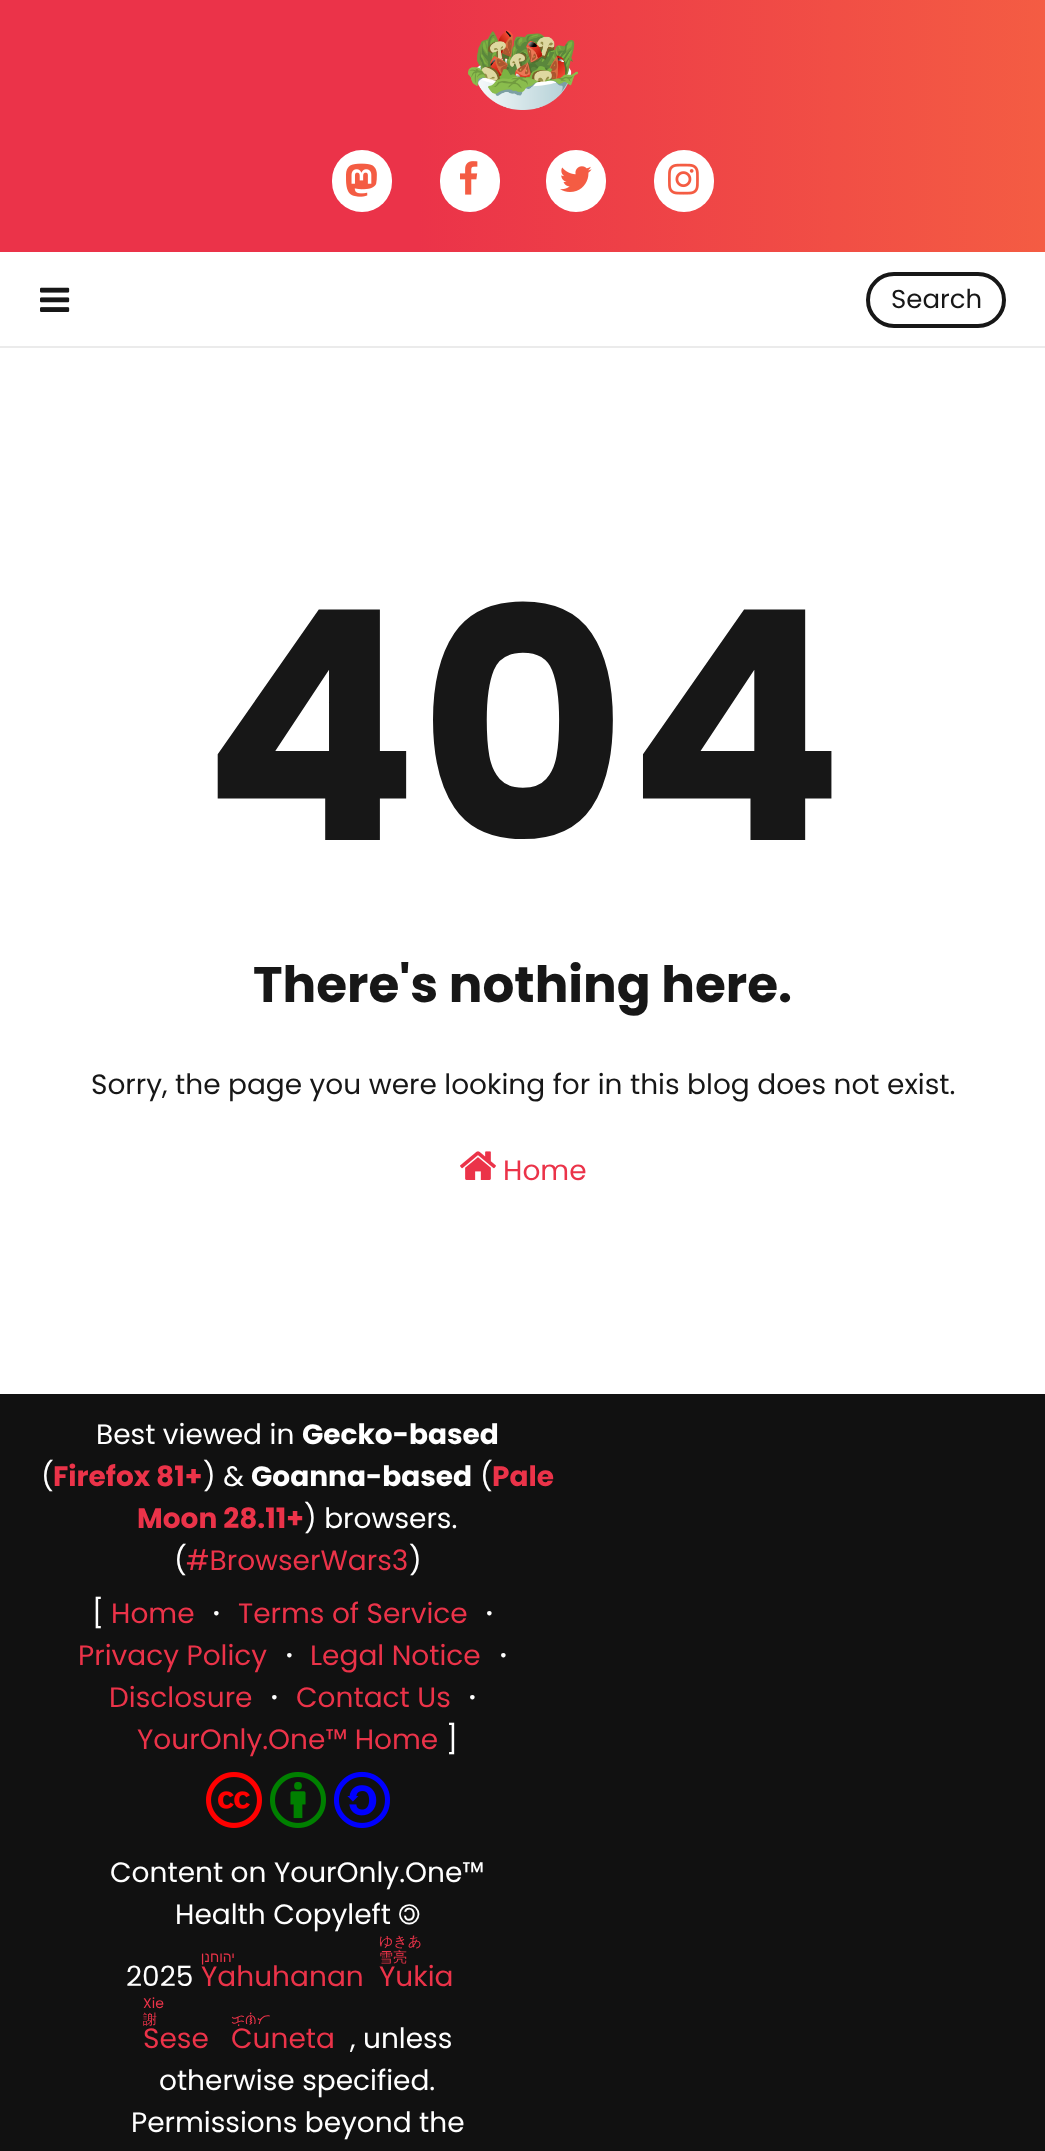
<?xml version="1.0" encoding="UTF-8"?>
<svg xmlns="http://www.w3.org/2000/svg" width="1045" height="2151">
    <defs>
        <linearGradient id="g1" gradientUnits="userSpaceOnUse" x1="0" y1="126" x2="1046" y2="126"><stop offset="0.4" stop-color="#EB3349"/><stop offset="1" stop-color="#F45C43"/></linearGradient>
    </defs>
    <rect width="100%" height="100%" fill="#FFFFFF"/>
    <rect x="0" y="0" width="1045" height="252" fill="url(#g1)"/>
    <image x="468" y="30" width="110" height="80" href="img_01.png"/>
    <rect x="332" y="150" width="60" height="62" rx="30" fill="#FFFFFF"/>
    <image x="346" y="163" width="31" height="34" href="img_02.png"/>
    <rect x="440" y="150" width="60" height="62" rx="30" fill="#FFFFFF"/>
    <image x="460" y="161" width="18" height="34" href="img_03.png"/>
    <rect x="546" y="150" width="60" height="62" rx="30" fill="#FFFFFF"/>
    <image x="560" y="166" width="32" height="26" href="img_04.png"/>
    <rect x="654" y="150" width="60" height="62" rx="30" fill="#FFFFFF"/>
    <image x="668" y="163" width="31" height="32" href="img_05.png"/>
    <rect x="0" y="346" width="1045" height="2" fill="#EBEBEB"/>
    <image x="40" y="287" width="30" height="25" href="img_06.png"/>
    <rect x="868" y="274" width="136" height="52" rx="26" fill="none" stroke="#171717" stroke-width="4"/>
    <text x="891" y="308" font-family="Poppins" font-size="26" fill="#171717">Search</text>
    <text x="202" y="840" font-family="Poppins" font-size="320" font-weight="700" fill="#171717">404</text>
    <text x="253" y="1002" font-family="Poppins" font-size="50" font-weight="700" fill="#171717">There's nothing here.</text>
    <text x="91" y="1094" font-family="Poppins" font-size="28" fill="#171717">Sorry, the page you were looking for in this blog does not exist.</text>
    <image x="460" y="1151" width="36" height="29" href="img_07.png"/>
    <text x="503" y="1180" font-family="Poppins" font-size="28" fill="#EB3349">Home</text>
    <rect x="0" y="1394" width="1045" height="757" fill="#111111"/>
    <text x="96" y="1444" font-family="Poppins" font-size="28" fill="#FFFFFF">Best viewed in</text>
    <text x="302" y="1444" font-family="Poppins" font-size="28" font-weight="700" fill="#FFFFFF">Gecko-based</text>
    <text x="41" y="1486" font-family="Poppins" font-size="28" fill="#FFFFFF">(</text>
    <text x="53" y="1486" font-family="Poppins" font-size="28" font-weight="700" fill="#EB3349">Firefox 81+</text>
    <text x="203" y="1486" font-family="Poppins" font-size="28" fill="#FFFFFF">) &amp;</text>
    <text x="251" y="1486" font-family="Poppins" font-size="28" font-weight="700" fill="#FFFFFF">Goanna-based</text>
    <text x="480" y="1486" font-family="Poppins" font-size="28" fill="#FFFFFF">(</text>
    <text x="492" y="1486" font-family="Poppins" font-size="28" font-weight="700" fill="#EB3349">Pale</text>
    <text x="137" y="1528" font-family="Poppins" font-size="28" font-weight="700" fill="#EB3349">Moon 28.11+</text>
    <text x="304" y="1528" font-family="Poppins" font-size="28" fill="#FFFFFF">) browsers.</text>
    <text x="174" y="1570" font-family="Poppins" font-size="28" fill="#FFFFFF">(</text>
    <text x="186" y="1570" font-family="Poppins" font-size="28" fill="#EB3349">#BrowserWars3</text>
    <text x="409" y="1570" font-family="Poppins" font-size="28" fill="#FFFFFF">)</text>
    <text x="92" y="1623" font-family="Poppins" font-size="28" fill="#FFFFFF">[</text>
    <text x="111" y="1623" font-family="Poppins" font-size="28" fill="#EB3349">Home</text>
    <text x="202" y="1623" font-family="WenQuanYi Zen Hei" font-size="28" font-weight="500" fill="#FFFFFF">・</text>
    <text x="238" y="1623" font-family="Poppins" font-size="28" fill="#EB3349">Terms of Service</text>
    <text x="475" y="1623" font-family="WenQuanYi Zen Hei" font-size="28" font-weight="500" fill="#FFFFFF">・</text>
    <text x="78" y="1665" font-family="Poppins" font-size="28" fill="#EB3349">Privacy Policy</text>
    <text x="275" y="1665" font-family="WenQuanYi Zen Hei" font-size="28" font-weight="500" fill="#FFFFFF">・</text>
    <text x="310" y="1665" font-family="Poppins" font-size="28" fill="#EB3349">Legal Notice</text>
    <text x="489" y="1665" font-family="WenQuanYi Zen Hei" font-size="28" font-weight="500" fill="#FFFFFF">・</text>
    <text x="109" y="1707" font-family="Poppins" font-size="28" fill="#EB3349">Disclosure</text>
    <text x="260" y="1707" font-family="WenQuanYi Zen Hei" font-size="28" font-weight="500" fill="#FFFFFF">・</text>
    <text x="296" y="1707" font-family="Poppins" font-size="28" fill="#EB3349">Contact Us</text>
    <text x="458" y="1707" font-family="WenQuanYi Zen Hei" font-size="28" font-weight="500" fill="#FFFFFF">・</text>
    <text x="137" y="1749" font-family="Poppins" font-size="28" fill="#EB3349">YourOnly.One™ Home</text>
    <text x="446" y="1749" font-family="Poppins" font-size="28" fill="#FFFFFF">]</text>
    <image x="206" y="1772" width="56" height="56" href="img_08.png"/>
    <image x="270" y="1772" width="56" height="56" href="img_09.png"/>
    <image x="333" y="1771" width="57" height="57" href="img_10.png"/>
    <text x="110" y="1882" font-family="Poppins" font-size="28" fill="#FFFFFF">Content on YourOnly.One™</text>
    <text x="175" y="1924" font-family="Poppins" font-size="28" fill="#FFFFFF">Health Copyleft</text>
    <text x="398" y="1924" font-family="FreeSans" font-size="28" fill="#FFFFFF">🄯</text>
    <text x="235" y="1962" font-family="Liberation Sans" font-size="14" direction="rtl" fill="#EB3349">יהוחנן</text>
    <text x="201" y="1986" font-family="Poppins" font-size="28" fill="#EB3349">Yahuhanan</text>
    <text font-family="WenQuanYi Zen Hei" font-size="14" font-weight="500" fill="#EB3349">
        <tspan x="379" y="1946">ゆきあ</tspan>
        <tspan x="379" y="1962">雪亮</tspan>
    </text>
    <text x="379" y="1986" font-family="Poppins" font-size="28" fill="#EB3349">Yukia</text>
    <text x="143" y="2008" font-family="Poppins" font-size="14" fill="#EB3349">Xie</text>
    <text x="143" y="2024" font-family="WenQuanYi Zen Hei" font-size="14" font-weight="500" fill="#EB3349">謝</text>
    <text x="143" y="2048" font-family="Poppins" font-size="28" fill="#EB3349">Sese</text>
    <text x="231" y="2024" font-family="Noto Sans Tagalog" font-size="14" fill="#EB3349">ᜃᜓᜈᜒᜆ</text>
    <text x="231" y="2048" font-family="Poppins" font-size="28" fill="#EB3349">Cuneta</text>
    <text x="126" y="1986" font-family="Poppins" font-size="28" fill="#FFFFFF">2025</text>
    <text x="350" y="2048" font-family="Poppins" font-size="28" fill="#FFFFFF">, unless</text>
    <text x="159" y="2090" font-family="Poppins" font-size="28" fill="#FFFFFF">otherwise specified.</text>
    <text x="131" y="2132" font-family="Poppins" font-size="28" fill="#FFFFFF">Permissions beyond the</text>
</svg>
